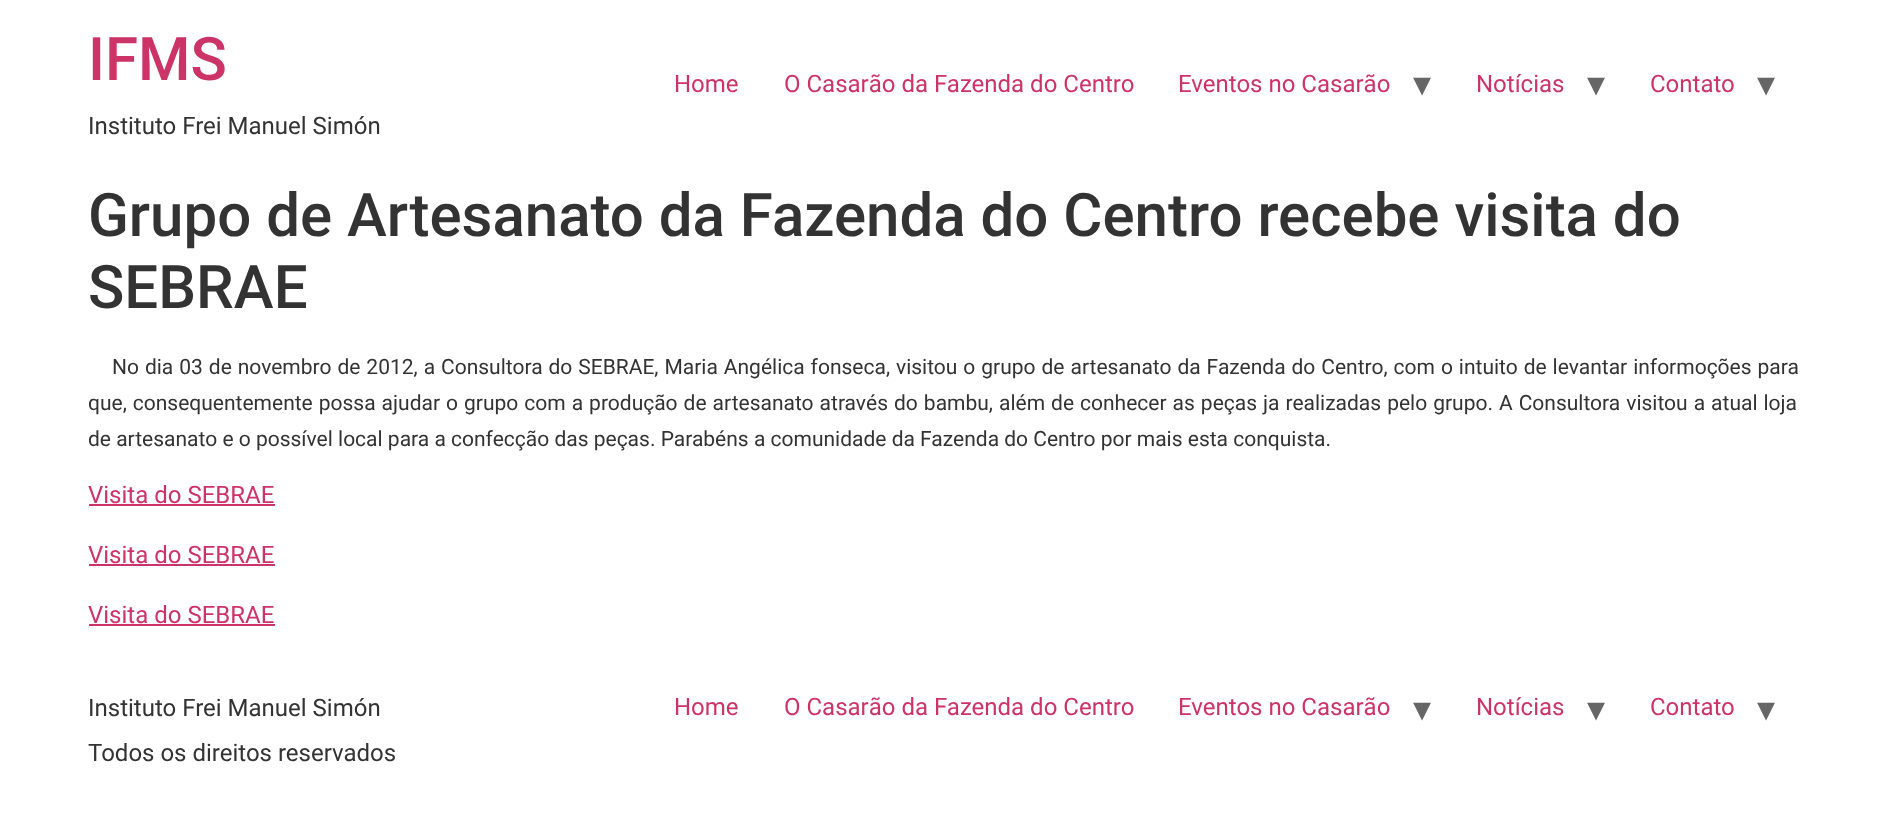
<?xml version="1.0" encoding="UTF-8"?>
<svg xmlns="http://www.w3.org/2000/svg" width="1885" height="835">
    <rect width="100%" height="100%" fill="#FFFFFF"/>
    <text x="88" y="80" font-family="Roboto" font-size="60" font-weight="500" fill="#CC3366">IFMS</text>
    <text x="88" y="134" font-family="Roboto" font-size="24" fill="#333333">Instituto Frei Manuel Simón</text>
    <text x="674" y="92" font-family="Roboto" font-size="24" fill="#CC3366">Home</text>
    <text x="784" y="92" font-family="Roboto" font-size="24" fill="#CC3366">O Casarão da Fazenda do Centro</text>
    <text x="1178" y="92" font-family="Roboto" font-size="24" fill="#CC3366">Eventos no Casarão</text>
    <text x="1413" y="96" font-family="DejaVu Sans" font-size="36" fill="#666666">▾</text>
    <text x="1476" y="92" font-family="Roboto" font-size="24" fill="#CC3366">Notícias</text>
    <text x="1587" y="96" font-family="DejaVu Sans" font-size="36" fill="#666666">▾</text>
    <text x="1650" y="92" font-family="Roboto" font-size="24" fill="#CC3366">Contato</text>
    <text x="1757" y="96" font-family="DejaVu Sans" font-size="36" fill="#666666">▾</text>
    <text font-family="Roboto" font-size="60" font-weight="500" fill="#333333">
        <tspan x="88" y="236">Grupo de Artesanato da Fazenda do Centro recebe visita do</tspan>
        <tspan x="88" y="308">SEBRAE</tspan>
    </text>
    <text x="112" y="374" word-spacing="0.75" font-family="Roboto" font-size="21" fill="#333333">No dia 03 de novembro de 2012, a Consultora do SEBRAE, Maria Angélica fonseca, visitou o grupo de artesanato da Fazenda do Centro, com o intuito de levantar informoções para</text>
    <text font-family="Roboto" font-size="21" fill="#333333">
        <tspan x="88" y="410" word-spacing="0.8">que, consequentemente possa ajudar o grupo com a produção de artesanato através do bambu, além de conhecer as peças ja realizadas pelo grupo. A Consultora visitou a atual loja</tspan>
        <tspan x="88" y="446">de artesanato e o possível local para a confecção das peças. Parabéns a comunidade da Fazenda do Centro por mais esta conquista.</tspan>
    </text>
    <text x="88" y="503" font-family="Roboto" font-size="24" fill="#CC3366">Visita do SEBRAE</text>
    <rect x="89" y="504" width="186" height="2" fill="#CC3366"/>
    <text x="88" y="563" font-family="Roboto" font-size="24" fill="#CC3366">Visita do SEBRAE</text>
    <rect x="89" y="564" width="186" height="2" fill="#CC3366"/>
    <text x="88" y="623" font-family="Roboto" font-size="24" fill="#CC3366">Visita do SEBRAE</text>
    <rect x="89" y="624" width="186" height="2" fill="#CC3366"/>
    <text x="88" y="716" font-family="Roboto" font-size="24" fill="#333333">Instituto Frei Manuel Simón</text>
    <text x="674" y="715" font-family="Roboto" font-size="24" fill="#CC3366">Home</text>
    <text x="784" y="715" font-family="Roboto" font-size="24" fill="#CC3366">O Casarão da Fazenda do Centro</text>
    <text x="1178" y="715" font-family="Roboto" font-size="24" fill="#CC3366">Eventos no Casarão</text>
    <text x="1413" y="721" font-family="DejaVu Sans" font-size="36" fill="#666666">▾</text>
    <text x="1476" y="715" font-family="Roboto" font-size="24" fill="#CC3366">Notícias</text>
    <text x="1587" y="721" font-family="DejaVu Sans" font-size="36" fill="#666666">▾</text>
    <text x="1650" y="715" font-family="Roboto" font-size="24" fill="#CC3366">Contato</text>
    <text x="1757" y="721" font-family="DejaVu Sans" font-size="36" fill="#666666">▾</text>
    <text x="88" y="761" font-family="Roboto" font-size="24" fill="#333333">Todos os direitos reservados</text>
</svg>
